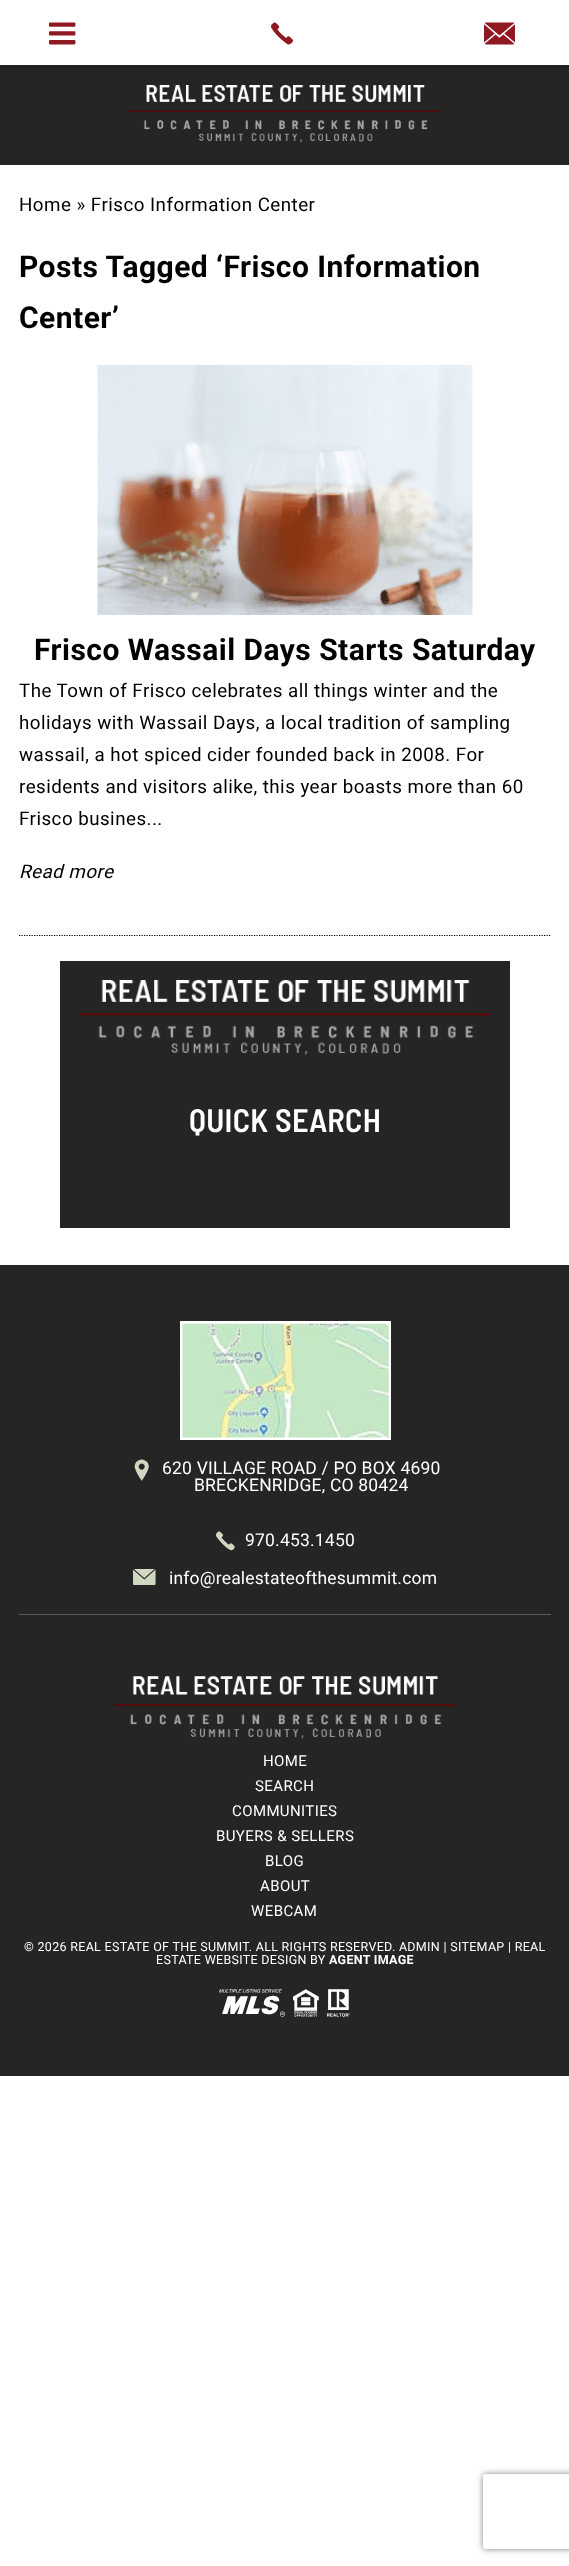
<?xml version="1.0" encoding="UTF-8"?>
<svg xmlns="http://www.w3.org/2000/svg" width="569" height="2566">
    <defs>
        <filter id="blur1" x="-50%" y="-200%" width="200%" height="500%"><feGaussianBlur stdDeviation="4.5"/></filter>
        <clipPath id="clip1"><path d="M 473 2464 H 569 V 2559 H 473 Z M 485.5 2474 H 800.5 C 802 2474 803 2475 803 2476.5 V 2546.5 C 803 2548 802 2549 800.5 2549 H 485.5 C 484 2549 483 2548 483 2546.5 V 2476.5 C 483 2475 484 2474 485.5 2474 Z" clip-rule="evenodd"/></clipPath>
        <filter id="blur2" x="-50%" y="-200%" width="200%" height="500%"><feGaussianBlur stdDeviation="3"/></filter>
    </defs>
    <rect width="100%" height="100%" fill="#FFFFFF"/>
    <rect x="0" y="65" width="569" height="100" fill="#252524"/>
    <rect x="0" y="3" width="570" height="65" fill="#000101" fill-opacity="0.09" filter="url(#blur1)"/>
    <rect x="0" y="0" width="569" height="65" fill="#FFFFFF"/>
    <text x="49" y="43" font-family="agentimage" font-size="22" letter-spacing="0.47" fill="#901821">򰁰</text>
    <text x="271" y="43" font-family="agentimage" font-size="22" letter-spacing="0.47" fill="#901821">򰁩</text>
    <text x="484" y="43" font-family="agentimage" font-size="22" letter-spacing="0.47" fill="#901821">򰄢</text>
    <image x="128" y="85" width="314" height="58" href="img_01.png"/>
    <text x="19" y="211" font-family="Roboto" font-size="18.75" letter-spacing="0.47" fill="#000000">Home » Frisco Information Center</text>
    <text font-family="Roboto" font-size="30" font-weight="700" letter-spacing="0.47" fill="#000000">
        <tspan x="19" y="277">Posts Tagged ‘Frisco Information</tspan>
        <tspan x="19" y="328">Center’</tspan>
    </text>
    <path d="M 19 935.5 H 551" fill="none" stroke="#000000" stroke-width="1.2" stroke-dasharray="1.25 1.25"/>
    <image x="97" y="365" width="376" height="250" href="img_02.png"/>
    <text x="34" y="660" font-family="Roboto" font-size="30" font-weight="700" letter-spacing="0.47" fill="#000000">Frisco Wassail Days Starts Saturday</text>
    <text font-family="Roboto" font-size="18.75" letter-spacing="0.47" fill="#000000">
        <tspan x="19" y="697">The Town of Frisco celebrates all things winter and the</tspan>
        <tspan x="19" y="729">holidays with Wassail Days, a local tradition of sampling</tspan>
        <tspan x="19" y="761">wassail, a hot spiced cider founded back in 2008. For</tspan>
        <tspan x="19" y="793">residents and visitors alike, this year boasts more than 60</tspan>
        <tspan x="19" y="825">Frisco busines...</tspan>
    </text>
    <text x="19" y="878" font-family="Roboto" font-size="18.75" font-style="italic" letter-spacing="0.47" fill="#000000">Read more</text>
    <rect x="60" y="961" width="450" height="267" fill="#252525"/>
    <image x="78" y="980" width="414" height="75" href="img_03.png"/>
    <text x="189" y="1132" font-family="Barlow Semi Condensed" font-size="32.5" font-weight="600" letter-spacing="0.25" fill="#FFFFFF">QUICK SEARCH</text>
    <rect x="0" y="1265" width="569" height="811" fill="#252525"/>
    <rect x="181.5" y="1322.5" width="208" height="116" fill="none" stroke="#FFFFFF" stroke-width="3"/>
    <image x="182" y="1323" width="207" height="115" href="img_04.png"/>
    <text x="130" y="1483" font-family="agentimage" font-size="25" letter-spacing="0.47" fill="#D1D8C2">򰁘</text>
    <text x="162" y="1474" font-family="Roboto" font-size="17.5" letter-spacing="0.2" fill="#FFFFFF">620 VILLAGE ROAD / PO BOX 4690</text>
    <text x="194" y="1491" font-family="Roboto" font-size="17.5" letter-spacing="0.2" fill="#FFFFFF">BRECKENRIDGE, CO 80424</text>
    <text x="216" y="1549" font-family="agentimage" font-size="18.75" letter-spacing="0.47" fill="#D1D8C2">򰁩</text>
    <text x="245" y="1546" font-family="Roboto" font-size="17.5" letter-spacing="0.2" fill="#FFFFFF">970.453.1450</text>
    <text x="133" y="1584" font-family="agentimage" font-size="16" letter-spacing="0.47" fill="#D1D8C2">򰄡</text>
    <text x="169" y="1584" font-family="Roboto" font-size="17.5" letter-spacing="0.2" fill="#FFFFFF">info@realestateofthesummit.com</text>
    <rect x="19" y="1614" width="532" height="1" fill="#595B54"/>
    <image x="113" y="1676" width="344" height="63" href="img_05.png"/>
    <text x="263" y="1766" font-family="Roboto" font-size="15" letter-spacing="0.4" fill="#FFFFFF">HOME</text>
    <text x="255" y="1791" font-family="Roboto" font-size="15" letter-spacing="0.4" fill="#FFFFFF">SEARCH</text>
    <text x="232" y="1816" font-family="Roboto" font-size="15" letter-spacing="0.4" fill="#FFFFFF">COMMUNITIES</text>
    <text x="216" y="1841" font-family="Roboto" font-size="15" letter-spacing="0.4" fill="#FFFFFF">BUYERS &amp; SELLERS</text>
    <text x="265" y="1866" font-family="Roboto" font-size="15" letter-spacing="0.4" fill="#FFFFFF">BLOG</text>
    <text x="260" y="1891" font-family="Roboto" font-size="15" letter-spacing="0.4" fill="#FFFFFF">ABOUT</text>
    <text x="251" y="1916" font-family="Roboto" font-size="15" letter-spacing="0.4" fill="#FFFFFF">WEBCAM</text>
    <text x="24" y="1951" font-family="Roboto" font-size="12.5" letter-spacing="0.3" fill="#FFFFFF">© 2026 REAL ESTATE OF THE SUMMIT. ALL RIGHTS RESERVED. ADMIN | SITEMAP | REAL</text>
    <text x="156" y="1964" font-family="Roboto" font-size="12.5" letter-spacing="0.3" fill="#FFFFFF">ESTATE WEBSITE DESIGN BY</text>
    <text x="329" y="1964" font-family="Roboto" font-size="12.5" font-weight="700" letter-spacing="0.3" fill="#FFFFFF">AGENT IMAGE</text>
    <text x="219" y="2015" font-family="agentimage" font-size="27.5" letter-spacing="0.47" fill="#FFFFFF">򰂒</text>
    <text x="293" y="2015" font-family="agentimage" font-size="27.5" letter-spacing="0.47" fill="#FFFFFF">򰂐</text>
    <text x="327" y="2015" font-family="agentimage" font-size="27.5" letter-spacing="0.47" fill="#FFFFFF">򰂑</text>
    <g clip-path="url(#clip1)">
        <rect x="483" y="2474" width="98" height="75" rx="2.5" fill="#808080" filter="url(#blur2)"/>
    </g>
</svg>
